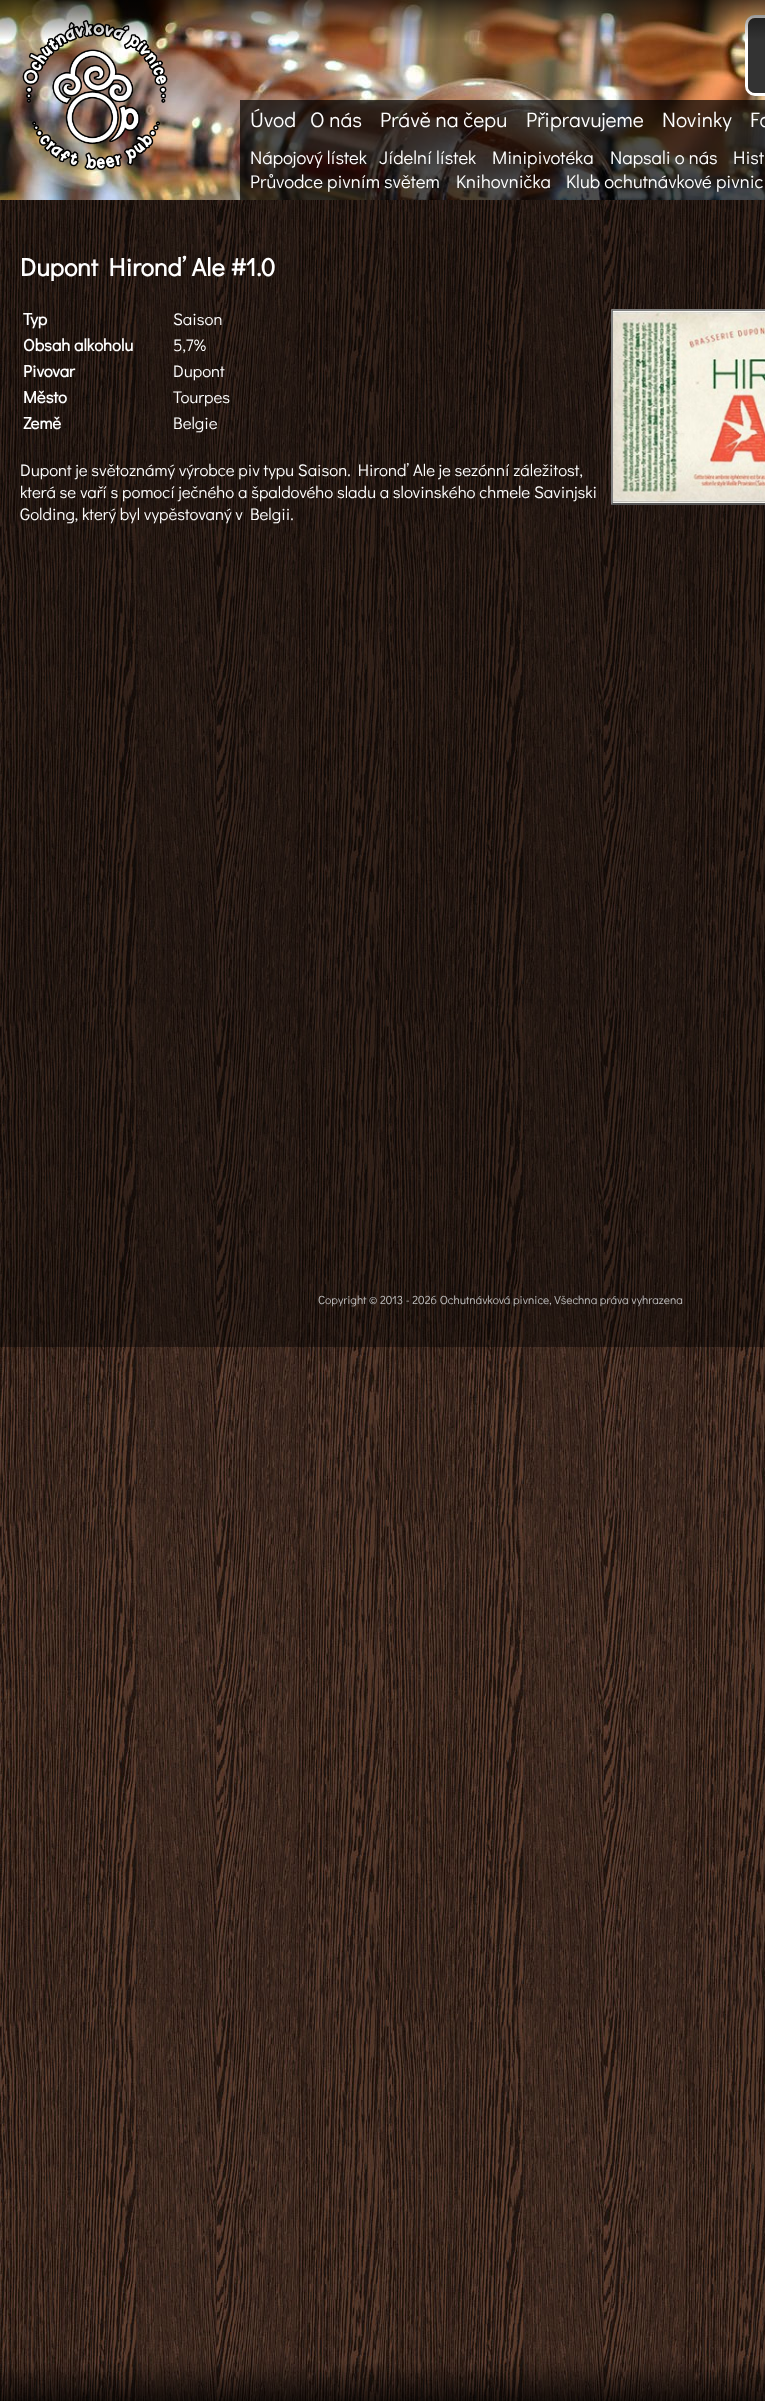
<?xml version="1.0" encoding="UTF-8"?>
<svg xmlns="http://www.w3.org/2000/svg" width="765" height="2401">
    <defs>
        <linearGradient id="g1" gradientUnits="userSpaceOnUse" x1="383" y1="0" x2="383" y2="40"><stop offset="0" stop-color="#000000" stop-opacity="0.65"/><stop offset="1" stop-color="#000000" stop-opacity="0"/></linearGradient>
    </defs>
    <rect width="100%" height="100%" fill="#FFFFFF"/>
    <image x="0" y="200" width="765" height="2201" href="img_01.png"/>
    <image x="0" y="0" width="765" height="200" href="img_02.png"/>
    <image x="22" y="20" width="146" height="150" href="img_03.png"/>
    <rect x="746.5" y="16.5" width="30" height="78" rx="8.5" fill="none" stroke="#FFFFFF" stroke-width="3"/>
    <image x="748" y="18" width="17" height="75" href="img_04.png"/>
    <rect x="0" y="0" width="765" height="39" fill="url(#g1)"/>
    <rect x="0" y="200" width="765" height="1147" fill="#000000" fill-opacity="0.4"/>
    <rect x="240" y="100" width="525" height="40" fill="#000000" fill-opacity="0.7"/>
    <text x="250" y="127" font-family="Didact Gothic" font-size="21" fill="#FFFFFF">Úvod</text>
    <text x="310" y="127" font-family="Didact Gothic" font-size="21" fill="#FFFFFF">O nás</text>
    <text x="380" y="127" font-family="Didact Gothic" font-size="21" fill="#FFFFFF">Právě na čepu</text>
    <text x="526" y="127" font-family="Didact Gothic" font-size="21" fill="#FFFFFF">Připravujeme</text>
    <text x="662" y="127" font-family="Didact Gothic" font-size="21" fill="#FFFFFF">Novinky</text>
    <text x="750" y="127" font-family="Didact Gothic" font-size="21" fill="#FFFFFF">Fo</text>
    <rect x="240" y="140" width="525" height="60" fill="#000000" fill-opacity="0.7"/>
    <text x="250" y="164" font-family="Didact Gothic" font-size="18.5" fill="#FFFFFF">Nápojový lístek</text>
    <text x="379" y="164" font-family="Didact Gothic" font-size="18.5" fill="#FFFFFF">Jídelní lístek</text>
    <text x="492" y="164" font-family="Didact Gothic" font-size="18.5" fill="#FFFFFF">Minipivotéka</text>
    <text x="610" y="164" font-family="Didact Gothic" font-size="18.5" fill="#FFFFFF">Napsali o nás</text>
    <text x="733" y="164" font-family="Didact Gothic" font-size="18.5" fill="#FFFFFF">Hist</text>
    <text x="250" y="188" font-family="Didact Gothic" font-size="18.5" fill="#FFFFFF">Průvodce pivním světem</text>
    <text x="456" y="188" font-family="Didact Gothic" font-size="18.5" fill="#FFFFFF">Knihovnička</text>
    <text x="566" y="188" font-family="Didact Gothic" font-size="18.5" fill="#FFFFFF">Klub ochutnávkové pivnic</text>
    <text x="20" y="276" font-family="Didact Gothic" font-size="25.25" font-weight="700" fill="#FFFFFF">Dupont Hirond’ Ale #1.0</text>
    <text x="23" y="325" font-family="Didact Gothic" font-size="16.8" font-weight="700" fill="#FFFFFF">Typ</text>
    <text x="173" y="325" font-family="Didact Gothic" font-size="16.8" fill="#FFFFFF">Saison</text>
    <text x="23" y="351" font-family="Didact Gothic" font-size="16.8" font-weight="700" fill="#FFFFFF">Obsah alkoholu</text>
    <text x="173" y="351" font-family="Didact Gothic" font-size="16.8" fill="#FFFFFF">5,7%</text>
    <text x="23" y="377" font-family="Didact Gothic" font-size="16.8" font-weight="700" fill="#FFFFFF">Pivovar</text>
    <text x="173" y="377" font-family="Didact Gothic" font-size="16.8" fill="#FFFFFF">Dupont</text>
    <text x="23" y="403" font-family="Didact Gothic" font-size="16.8" font-weight="700" fill="#FFFFFF">Město</text>
    <text x="173" y="403" font-family="Didact Gothic" font-size="16.8" fill="#FFFFFF">Tourpes</text>
    <text x="23" y="429" font-family="Didact Gothic" font-size="16.8" font-weight="700" fill="#FFFFFF">Země</text>
    <text x="173" y="429" font-family="Didact Gothic" font-size="16.8" fill="#FFFFFF">Belgie</text>
    <path d="M 611 309 H 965 L 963 311 H 613 Z" fill="#808080"/>
    <path d="M 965 505 H 611 L 613 503 H 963 Z" fill="#555555"/>
    <path d="M 611 505 V 309 L 613 311 V 503 Z" fill="#808080"/>
    <image x="613" y="311" width="152" height="192" href="img_05.png"/>
    <text font-family="Didact Gothic" font-size="16.8" fill="#FFFFFF">
        <tspan x="20" y="476">Dupont je světoznámý výrobce piv typu Saison. Hirond’ Ale je sezónní záležitost,</tspan>
        <tspan x="20" y="498">která se vaří s pomocí ječného a špaldového sladu a slovinského chmele Savinjski</tspan>
        <tspan x="20" y="520">Golding, který byl vypěstovaný v Belgii.</tspan>
    </text>
    <text x="318" y="1304" font-family="Didact Gothic" font-size="11.75" fill="#C0C0C0">Copyright © 2013 - 2026 Ochutnávková pivnice, Všechna práva vyhrazena</text>
</svg>
